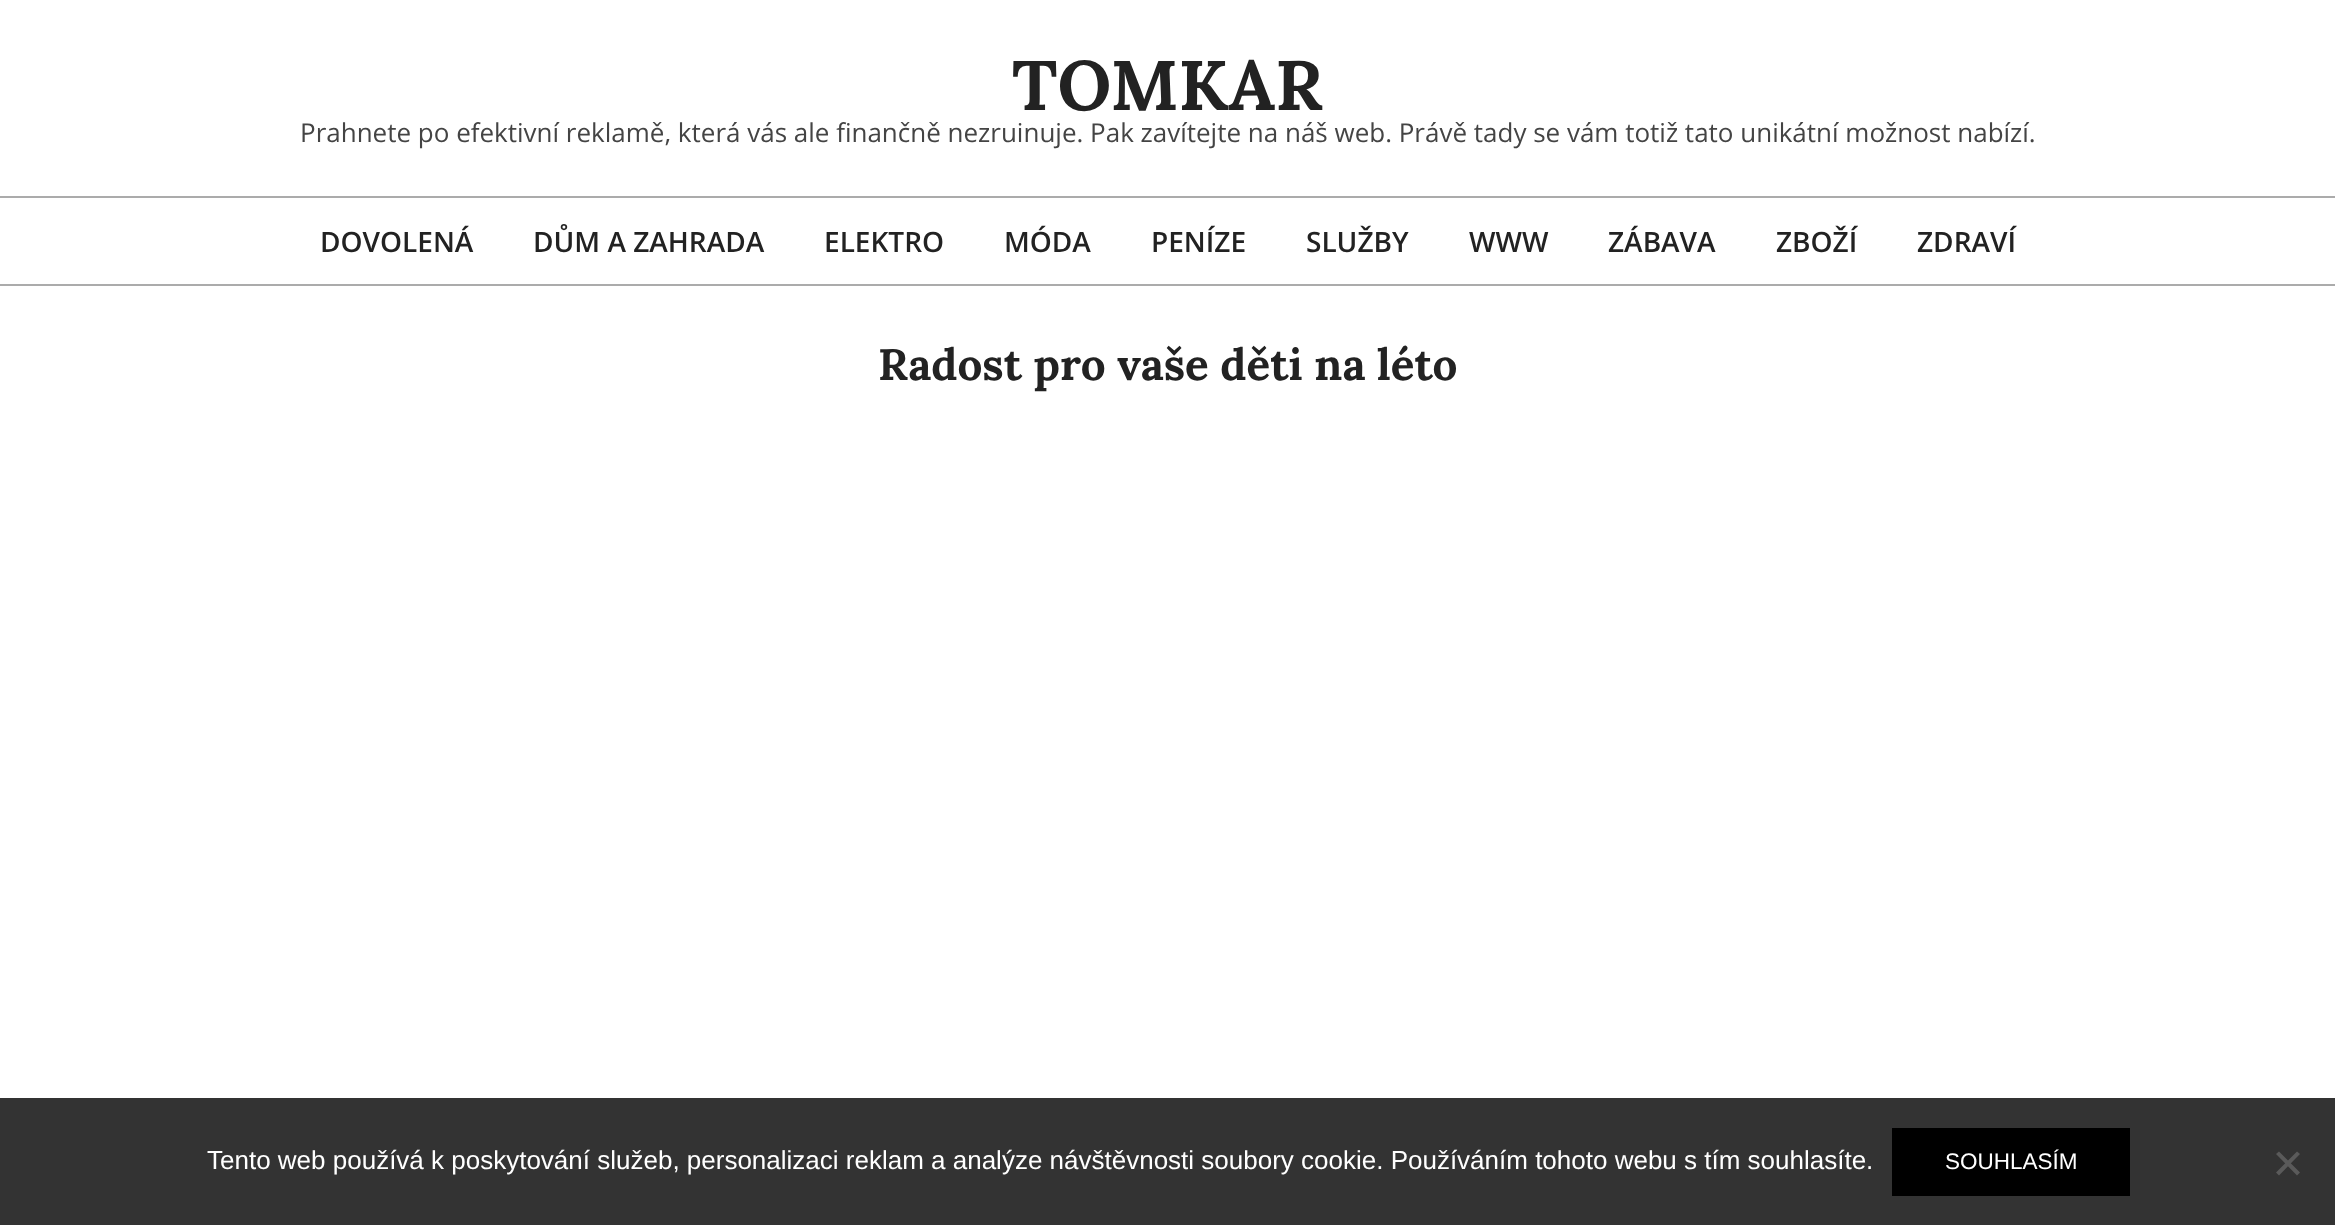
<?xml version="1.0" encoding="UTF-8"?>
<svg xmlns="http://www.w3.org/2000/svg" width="2335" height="1225">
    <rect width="100%" height="100%" fill="#FFFFFF"/>
    <rect x="0" y="196" width="2335" height="2" fill="#ABABAB"/>
    <text x="1012" y="110" font-family="Lora" font-size="70" font-weight="700" fill="#222222">TOMKAR</text>
    <text x="300" y="142" font-family="Open Sans" font-size="26" fill="#444444">Prahnete po efektivní reklamě, která vás ale finančně nezruinuje. Pak zavítejte na náš web. Právě tady se vám totiž tato unikátní možnost nabízí.</text>
    <rect x="0" y="284" width="2335" height="2" fill="#ABABAB"/>
    <text x="320" y="252" font-family="Open Sans" font-size="28" font-weight="600" fill="#222222">DOVOLENÁ</text>
    <text x="533" y="252" font-family="Open Sans" font-size="28" font-weight="600" fill="#222222">DŮM A ZAHRADA</text>
    <text x="824" y="252" font-family="Open Sans" font-size="28" font-weight="600" fill="#222222">ELEKTRO</text>
    <text x="1004" y="252" font-family="Open Sans" font-size="28" font-weight="600" fill="#222222">MÓDA</text>
    <text x="1151" y="252" font-family="Open Sans" font-size="28" font-weight="600" fill="#222222">PENÍZE</text>
    <text x="1306" y="252" font-family="Open Sans" font-size="28" font-weight="600" fill="#222222">SLUŽBY</text>
    <text x="1469" y="252" font-family="Open Sans" font-size="28" font-weight="600" fill="#222222">WWW</text>
    <text x="1608" y="252" font-family="Open Sans" font-size="28" font-weight="600" fill="#222222">ZÁBAVA</text>
    <text x="1776" y="252" font-family="Open Sans" font-size="28" font-weight="600" fill="#222222">ZBOŽÍ</text>
    <text x="1917" y="252" font-family="Open Sans" font-size="28" font-weight="600" fill="#222222">ZDRAVÍ</text>
    <text x="878" y="380" font-family="Lora" font-size="44" font-weight="700" fill="#222222">Radost pro vaše děti na léto</text>
    <rect x="0" y="1098" width="2335" height="127" fill="#333333"/>
    <text x="207" y="1169" font-family="Liberation Sans" font-size="26" fill="#FFFFFF">Tento web používá k poskytování služeb, personalizaci reklam a analýze návštěvnosti soubory cookie. Používáním tohoto webu s tím souhlasíte.</text>
    <rect x="1892" y="1128" width="238" height="68" fill="#000000"/>
    <text x="1945" y="1169" font-family="Liberation Sans" font-size="22.5" fill="#FFFFFF">SOUHLASÍM</text>
    <path d="M 2297 1151.5 L 2300 1154 L 2279 1175.5 L 2276 1172.5 Z" fill="#5A5A5A"/>
    <path d="M 2276 1154 L 2279 1151.5 L 2300 1172.5 L 2297 1175.5 Z" fill="#5A5A5A"/>
</svg>
